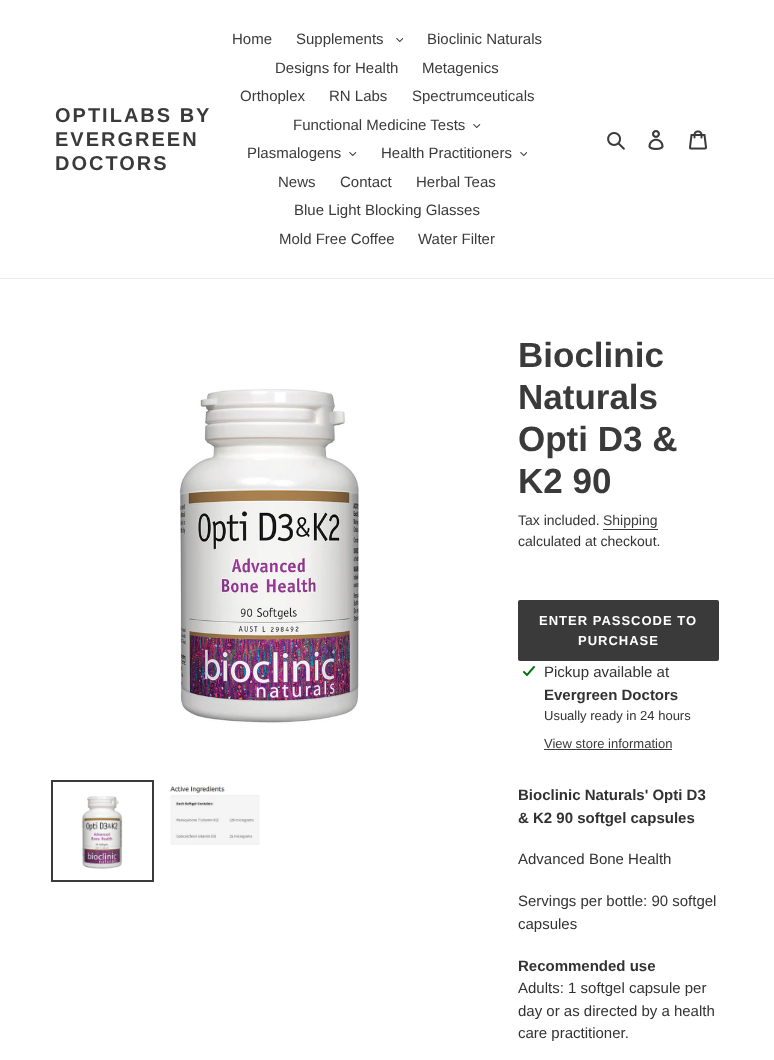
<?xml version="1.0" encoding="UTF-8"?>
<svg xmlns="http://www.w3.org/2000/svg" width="774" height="1060">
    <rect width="100%" height="100%" fill="#FFFFFF"/>
    <rect x="0" y="278" width="774" height="1" fill="#EBEBEB"/>
    <text font-family="Liberation Sans" font-size="20" font-weight="700" letter-spacing="2" fill="#3A3A3A">
        <tspan x="55" y="122">OPTILABS BY</tspan>
        <tspan x="55" y="146">EVERGREEN</tspan>
        <tspan x="55" y="170">DOCTORS</tspan>
    </text>
    <text x="232" y="44" font-family="Liberation Sans" font-size="15" fill="#3A3A3A">Home</text>
    <text x="296" y="44" font-family="Liberation Sans" font-size="15" fill="#3A3A3A">Supplements</text>
    <image x="396" y="38" width="7" height="4" href="img_01.png"/>
    <text x="427" y="44" font-family="Liberation Sans" font-size="15" fill="#3A3A3A">Bioclinic Naturals</text>
    <text x="275" y="73" font-family="Liberation Sans" font-size="15" fill="#3A3A3A">Designs for Health</text>
    <text x="422" y="73" font-family="Liberation Sans" font-size="15" fill="#3A3A3A">Metagenics</text>
    <text x="240" y="101" font-family="Liberation Sans" font-size="15" fill="#3A3A3A">Orthoplex</text>
    <text x="329" y="101" font-family="Liberation Sans" font-size="15" fill="#3A3A3A">RN Labs</text>
    <text x="412" y="101" font-family="Liberation Sans" font-size="15" fill="#3A3A3A">Spectrumceuticals</text>
    <text x="293" y="130" font-family="Liberation Sans" font-size="15" fill="#3A3A3A">Functional Medicine Tests</text>
    <image x="473" y="124" width="8" height="4" href="img_02.png"/>
    <text x="247" y="158" font-family="Liberation Sans" font-size="15" fill="#3A3A3A">Plasmalogens</text>
    <image x="349" y="152" width="8" height="4" href="img_02.png"/>
    <text x="381" y="158" font-family="Liberation Sans" font-size="15" fill="#3A3A3A">Health Practitioners</text>
    <image x="520" y="152" width="7" height="4" href="img_01.png"/>
    <text x="278" y="187" font-family="Liberation Sans" font-size="15" fill="#3A3A3A">News</text>
    <text x="340" y="187" font-family="Liberation Sans" font-size="15" fill="#3A3A3A">Contact</text>
    <text x="416" y="187" font-family="Liberation Sans" font-size="15" fill="#3A3A3A">Herbal Teas</text>
    <text x="294" y="215" font-family="Liberation Sans" font-size="15" fill="#3A3A3A">Blue Light Blocking Glasses</text>
    <text x="279" y="244" font-family="Liberation Sans" font-size="15" fill="#3A3A3A">Mold Free Coffee</text>
    <text x="418" y="244" font-family="Liberation Sans" font-size="15" fill="#3A3A3A">Water Filter</text>
    <image x="607" y="132" width="18" height="18" href="img_03.png"/>
    <image x="648" y="130" width="16" height="20" href="img_04.png"/>
    <image x="689" y="130" width="18" height="20" href="img_05.png"/>
    <image x="179" y="388" width="181" height="336" href="img_06.png"/>
    <rect x="52" y="781" width="101" height="100" fill="none" stroke="#3A3A3A" stroke-width="2"/>
    <image x="81" y="796" width="42" height="73" href="img_07.png"/>
    <image x="170" y="785" width="90" height="60" href="img_08.png"/>
    <text font-family="Liberation Sans" font-size="35" font-weight="700" fill="#3A3A3A">
        <tspan x="518" y="367">Bioclinic</tspan>
        <tspan x="518" y="409">Naturals</tspan>
        <tspan x="518" y="451">Opti D3 &amp;</tspan>
        <tspan x="518" y="493">K2 90</tspan>
    </text>
    <text x="518" y="525" font-family="Liberation Sans" font-size="14" fill="#333232">Tax included.</text>
    <text x="603" y="525" font-family="Liberation Sans" font-size="14" fill="#3A3A3A">Shipping</text>
    <rect x="603" y="529" width="55" height="1" fill="#3A3A3A"/>
    <text x="518" y="546" font-family="Liberation Sans" font-size="14" fill="#333232">calculated at checkout.</text>
    <rect x="518" y="600" width="201" height="61" rx="2" fill="#3A3A3A"/>
    <text x="539" y="625" font-family="Liberation Sans" font-size="13" font-weight="700" letter-spacing="1" fill="#FFFFFF">ENTER PASSCODE TO</text>
    <text x="578" y="645" font-family="Liberation Sans" font-size="13" font-weight="700" letter-spacing="1" fill="#FFFFFF">PURCHASE</text>
    <image x="523" y="666" width="12" height="10" href="img_09.png"/>
    <text x="544" y="677" font-family="Liberation Sans" font-size="15" fill="#333232">Pickup available at</text>
    <text x="544" y="700" font-family="Liberation Sans" font-size="15" font-weight="700" fill="#333232">Evergreen Doctors</text>
    <text x="544" y="720" font-family="Liberation Sans" font-size="13" fill="#333232">Usually ready in 24 hours</text>
    <text x="544" y="748" font-family="Liberation Sans" font-size="13" fill="#3A3A3A">View store information</text>
    <rect x="544" y="749" width="128" height="1" fill="#3A3A3A"/>
    <text font-family="Liberation Sans" font-size="15" font-weight="700" fill="#333232">
        <tspan x="518" y="800">Bioclinic Naturals' Opti D3</tspan>
        <tspan x="518" y="823">&amp; K2 90 softgel capsules</tspan>
    </text>
    <text x="518" y="864" font-family="Liberation Sans" font-size="15" fill="#333232">Advanced Bone Health</text>
    <text font-family="Liberation Sans" font-size="15" fill="#333232">
        <tspan x="518" y="906">Servings per bottle: 90 softgel</tspan>
        <tspan x="518" y="929">capsules</tspan>
    </text>
    <text x="518" y="971" font-family="Liberation Sans" font-size="15" font-weight="700" fill="#333232">Recommended use</text>
    <text font-family="Liberation Sans" font-size="15" fill="#333232">
        <tspan x="518" y="993">Adults: 1 softgel capsule per</tspan>
        <tspan x="518" y="1016">day or as directed by a health</tspan>
        <tspan x="518" y="1038">care practitioner.</tspan>
    </text>
</svg>
